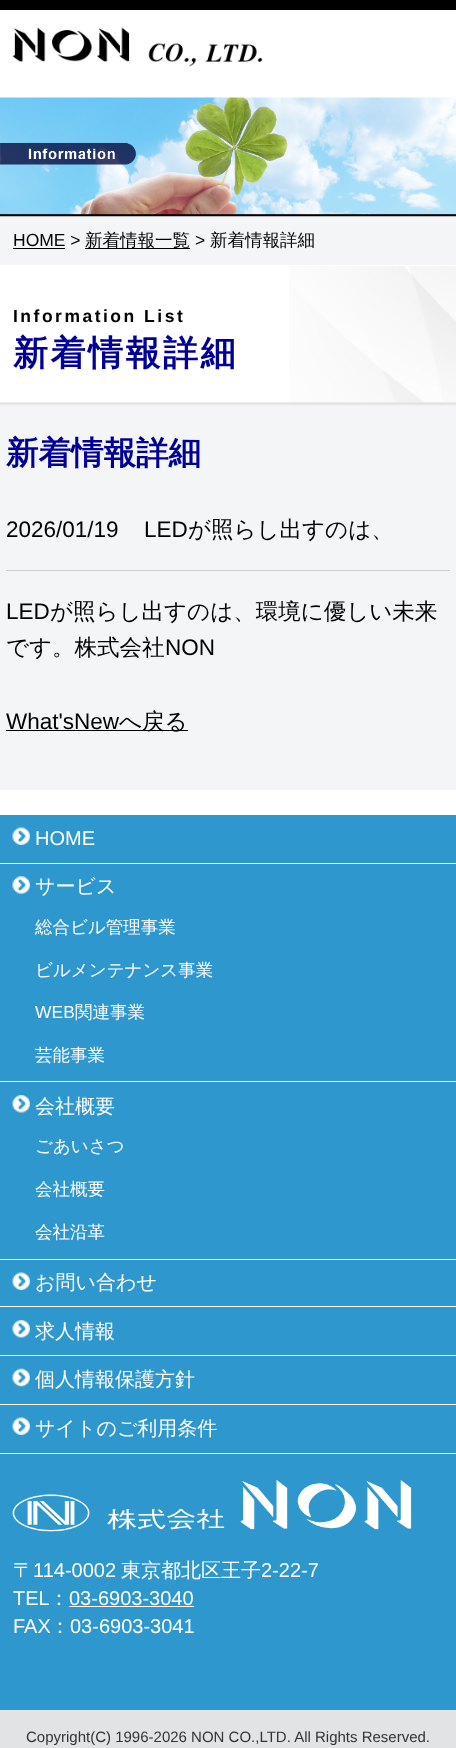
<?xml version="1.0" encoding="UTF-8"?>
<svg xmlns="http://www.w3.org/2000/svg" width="456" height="1748">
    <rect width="100%" height="100%" fill="#FFFFFF"/>
    <rect x="0" y="0" width="456" height="10" fill="#000000"/>
    <image x="12" y="27" width="251" height="40" href="img_01.png"/>
    <rect x="0" y="216" width="456" height="49" fill="#F4F5F7"/>
    <image x="0" y="97" width="456" height="120" href="img_02.png"/>
    <text x="13" y="246" font-family="Liberation Sans" font-size="17.5" fill="#000000">HOME &gt;</text>
    <rect x="13" y="248" width="52" height="1" fill="#000000"/>
    <rect x="85" y="248" width="105" height="1" fill="#000000"/>
    <text x="85" y="246" font-family="WenQuanYi Zen Hei" font-size="17.5" font-weight="500" fill="#000000">新着情報一覧</text>
    <text x="195" y="246" font-family="Liberation Sans" font-size="17.5" fill="#000000">&gt;</text>
    <text x="210" y="246" font-family="WenQuanYi Zen Hei" font-size="17.5" font-weight="500" fill="#000000">新着情報詳細</text>
    <image x="289" y="266" width="167" height="137" href="img_03.png"/>
    <text x="13" y="322" font-family="Liberation Sans" font-size="17.5" font-weight="700" letter-spacing="2.5" fill="#000000">Information List</text>
    <text x="13" y="365" font-family="WenQuanYi Zen Hei" font-size="35" font-weight="700" letter-spacing="2.5" fill="#000099">新着情報詳細</text>
    <rect x="0" y="406" width="456" height="384" fill="#F4F5F7"/>
    <image x="0" y="402" width="456" height="4" href="img_04.png"/>
    <text x="6" y="464" font-family="WenQuanYi Zen Hei" font-size="32.5" font-weight="700" fill="#000099">新着情報詳細</text>
    <text x="6" y="537" font-family="Liberation Sans" font-size="22.5" fill="#000000">2026/01/19</text>
    <text x="144" y="537" font-family="Liberation Sans" font-size="22.5" fill="#000000">LED</text>
    <text x="188" y="537" font-family="WenQuanYi Zen Hei" font-size="22.5" font-weight="500" fill="#000000">が照らし出すのは、</text>
    <rect x="6" y="570" width="444" height="1" fill="#CCCCCC"/>
    <text x="6" y="619" font-family="Liberation Sans" font-size="22.5" fill="#000000">LED</text>
    <text x="50" y="619" font-family="WenQuanYi Zen Hei" font-size="22.5" font-weight="500" fill="#000000">が照らし出すのは、環境に優しい未来</text>
    <text x="6" y="655" font-family="WenQuanYi Zen Hei" font-size="22.5" font-weight="500" fill="#000000">です。株式会社</text>
    <text x="165" y="655" font-family="Liberation Sans" font-size="22.5" fill="#000000">NON</text>
    <text x="6" y="729" font-family="Liberation Sans" font-size="22.5" fill="#000000">What'sNew</text>
    <rect x="6" y="730" width="182" height="1" fill="#000000"/>
    <text x="119" y="729" font-family="WenQuanYi Zen Hei" font-size="22.5" font-weight="500" fill="#000000">へ戻る</text>
    <rect x="0" y="815" width="456" height="895" fill="#2E97CD"/>
    <rect x="0" y="863" width="456" height="1" fill="#FFFFFF"/>
    <image x="12" y="827" width="18" height="18" href="img_05.png"/>
    <text x="35" y="845" font-family="Liberation Sans" font-size="20" fill="#FFFFFF">HOME</text>
    <rect x="0" y="1081" width="456" height="1" fill="#FFFFFF"/>
    <image x="12" y="876" width="18" height="18" href="img_06.png"/>
    <text x="35" y="893" font-family="WenQuanYi Zen Hei" font-size="20" font-weight="500" fill="#FFFFFF">サービス</text>
    <text x="35" y="933" font-family="WenQuanYi Zen Hei" font-size="17.5" font-weight="500" fill="#FFFFFF">総合ビル管理事業</text>
    <text x="35" y="976" font-family="WenQuanYi Zen Hei" font-size="17.5" font-weight="500" fill="#FFFFFF">ビルメンテナンス事業</text>
    <text x="35" y="1018" font-family="Liberation Sans" font-size="17.5" fill="#FFFFFF">WEB</text>
    <text x="75" y="1018" font-family="WenQuanYi Zen Hei" font-size="17.5" font-weight="500" fill="#FFFFFF">関連事業</text>
    <text x="35" y="1061" font-family="WenQuanYi Zen Hei" font-size="17.5" font-weight="500" fill="#FFFFFF">芸能事業</text>
    <rect x="0" y="1259" width="456" height="1" fill="#FFFFFF"/>
    <image x="12" y="1095" width="18" height="18" href="img_07.png"/>
    <text x="35" y="1113" font-family="WenQuanYi Zen Hei" font-size="20" font-weight="500" fill="#FFFFFF">会社概要</text>
    <text x="35" y="1152" font-family="WenQuanYi Zen Hei" font-size="17.5" font-weight="500" fill="#FFFFFF">ごあいさつ</text>
    <text x="35" y="1195" font-family="WenQuanYi Zen Hei" font-size="17.5" font-weight="500" fill="#FFFFFF">会社概要</text>
    <text x="35" y="1238" font-family="WenQuanYi Zen Hei" font-size="17.5" font-weight="500" fill="#FFFFFF">会社沿革</text>
    <rect x="0" y="1453" width="456" height="1" fill="#FFFFFF"/>
    <image x="12" y="1272" width="18" height="18" href="img_05.png"/>
    <rect x="0" y="1306" width="456" height="1" fill="#FFFFFF"/>
    <text x="35" y="1289" font-family="WenQuanYi Zen Hei" font-size="20" font-weight="500" fill="#FFFFFF">お問い合わせ</text>
    <image x="12" y="1320" width="18" height="18" href="img_07.png"/>
    <rect x="0" y="1355" width="456" height="1" fill="#FFFFFF"/>
    <text x="35" y="1338" font-family="WenQuanYi Zen Hei" font-size="20" font-weight="500" fill="#FFFFFF">求人情報</text>
    <image x="12" y="1368" width="18" height="19" href="img_08.png"/>
    <rect x="0" y="1404" width="456" height="1" fill="#FFFFFF"/>
    <text x="35" y="1386" font-family="WenQuanYi Zen Hei" font-size="20" font-weight="500" fill="#FFFFFF">個人情報保護方針</text>
    <image x="12" y="1417" width="18" height="18" href="img_05.png"/>
    <text x="35" y="1435" font-family="WenQuanYi Zen Hei" font-size="20" font-weight="500" fill="#FFFFFF">サイトのご利用条件</text>
    <image x="12" y="1479" width="400" height="53" href="img_09.png"/>
    <text x="13" y="1577" font-family="WenQuanYi Zen Hei" font-size="20" font-weight="500" fill="#FFFFFF">〒</text>
    <text x="33" y="1577" font-family="Liberation Sans" font-size="20" fill="#FFFFFF">114-0002</text>
    <text x="121" y="1577" font-family="WenQuanYi Zen Hei" font-size="20" font-weight="500" fill="#FFFFFF">東京都北区王子</text>
    <text x="261" y="1577" font-family="Liberation Sans" font-size="20" fill="#FFFFFF">2-22-7</text>
    <text x="13" y="1605" font-family="Liberation Sans" font-size="20" fill="#FFFFFF">TEL</text>
    <text x="49" y="1605" font-family="WenQuanYi Zen Hei" font-size="20" font-weight="500" fill="#FFFFFF">：</text>
    <text x="69" y="1605" font-family="Liberation Sans" font-size="20" fill="#FFFFFF">03-6903-3040</text>
    <rect x="69" y="1606" width="125" height="1" fill="#FFFFFF"/>
    <text x="13" y="1633" font-family="Liberation Sans" font-size="20" fill="#FFFFFF">FAX</text>
    <text x="50" y="1633" font-family="WenQuanYi Zen Hei" font-size="20" font-weight="500" fill="#FFFFFF">：</text>
    <text x="70" y="1633" font-family="Liberation Sans" font-size="20" fill="#FFFFFF">03-6903-3041</text>
    <rect x="0" y="1710" width="456" height="38" fill="#E2E3E5"/>
    <text x="26" y="1742" font-family="Liberation Sans" font-size="15" fill="#333333">Copyright(C) 1996-2026 NON CO.,LTD. All Rights Reserved.</text>
</svg>
